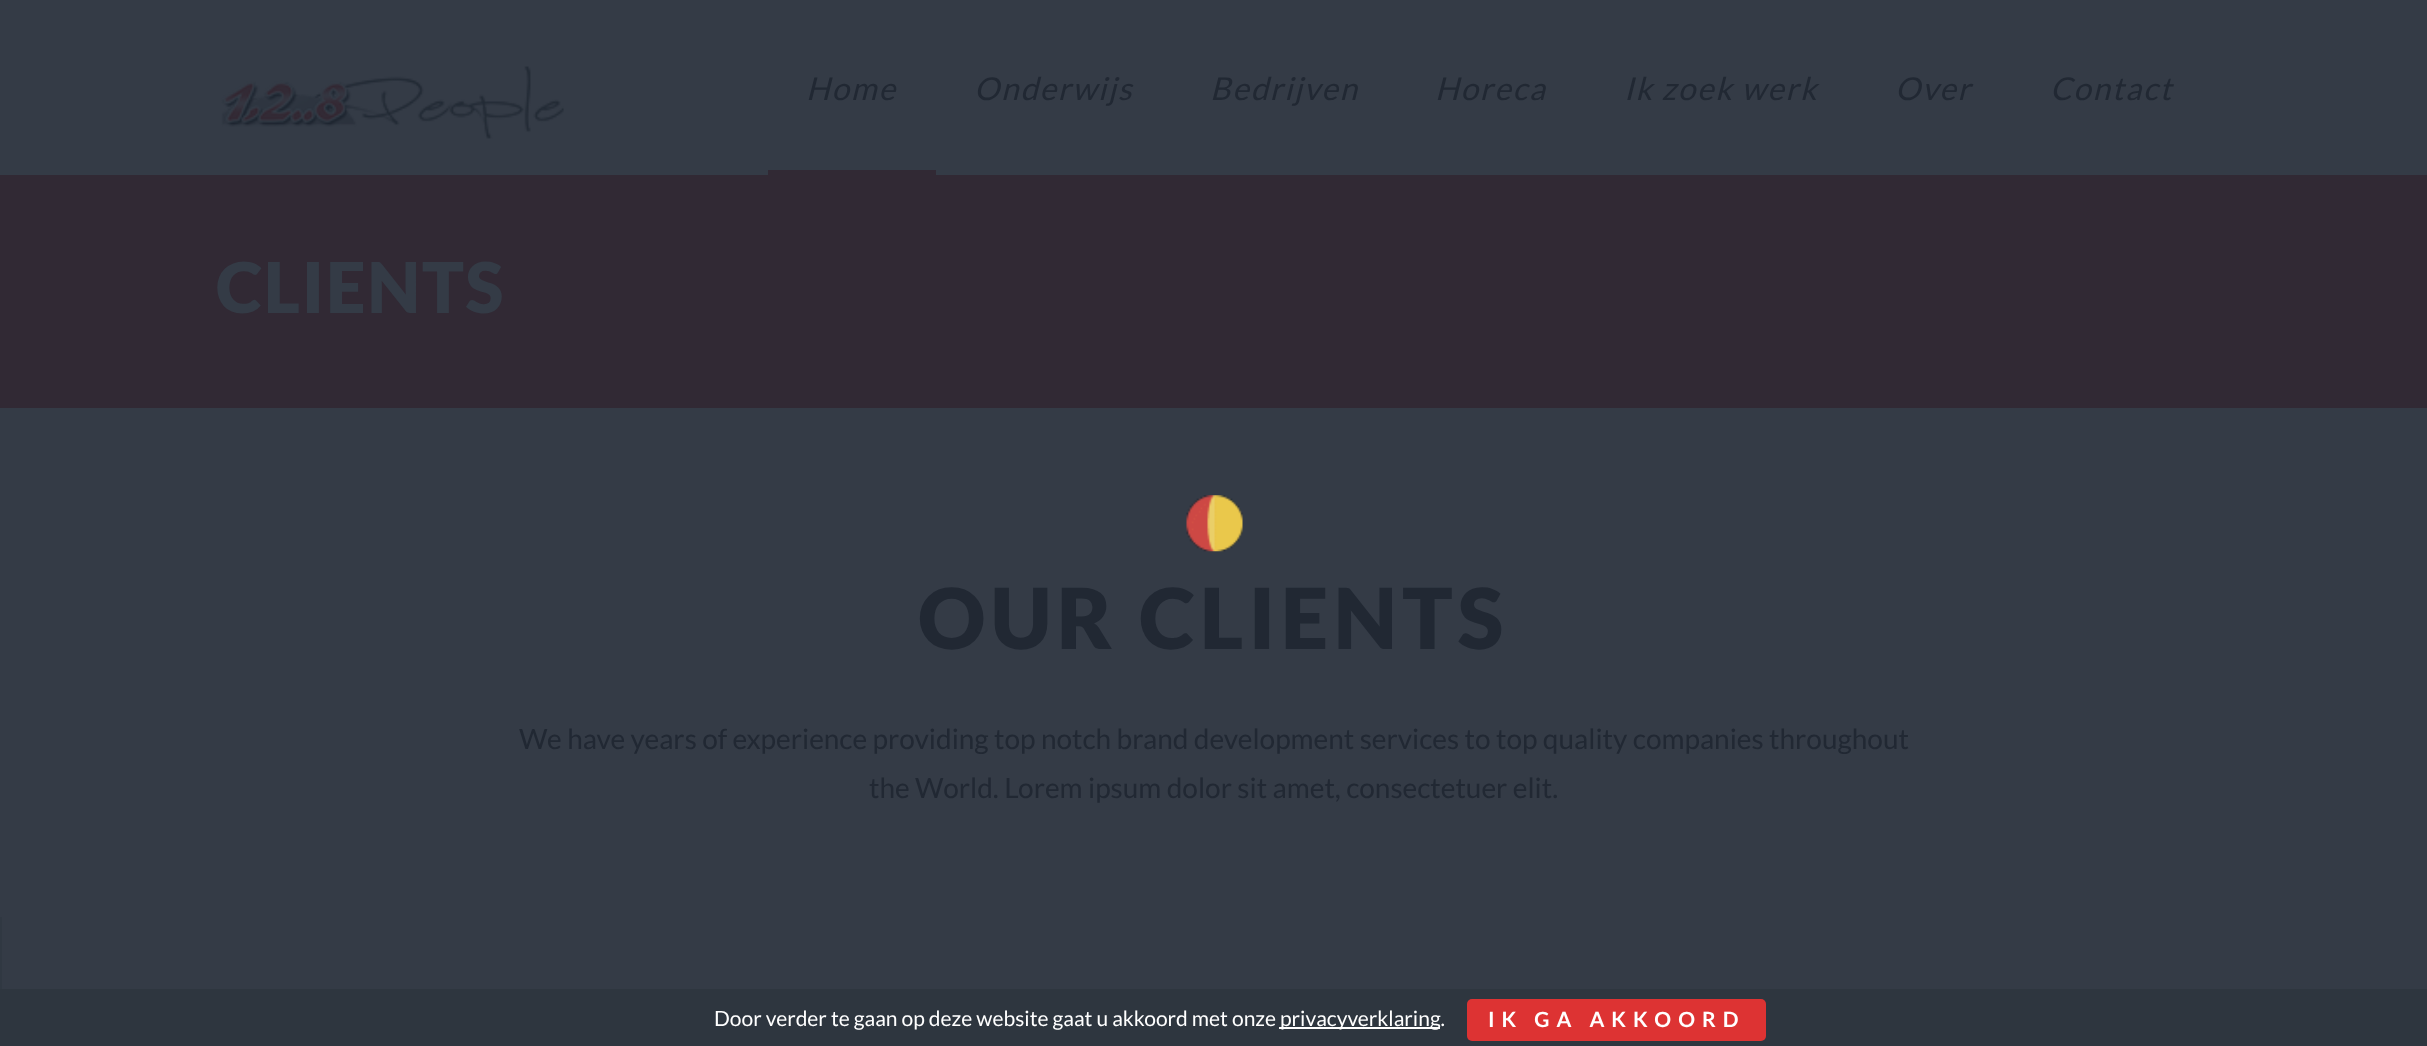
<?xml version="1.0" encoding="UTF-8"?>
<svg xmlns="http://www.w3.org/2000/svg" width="2427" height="1046">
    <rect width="100%" height="100%" fill="#343B46"/>
    <image x="221" y="66" width="343" height="73" href="img_01.png"/>
    <text x="806" y="100" font-family="Lato" font-size="31.5" font-style="italic" letter-spacing="1.75" fill="#212833">Home</text>
    <text x="974" y="100" font-family="Lato" font-size="31.5" font-style="italic" letter-spacing="1.75" fill="#212833">Onderwijs</text>
    <text x="1210" y="100" font-family="Lato" font-size="31.5" font-style="italic" letter-spacing="1.75" fill="#212833">Bedrijven</text>
    <text x="1435" y="100" font-family="Lato" font-size="31.5" font-style="italic" letter-spacing="1.75" fill="#212833">Horeca</text>
    <text x="1624" y="100" font-family="Lato" font-size="31.5" font-style="italic" letter-spacing="1.75" fill="#212833">Ik zoek werk</text>
    <text x="1895" y="100" font-family="Lato" font-size="31.5" font-style="italic" letter-spacing="1.75" fill="#212833">Over</text>
    <text x="2050" y="100" font-family="Lato" font-size="31.5" font-style="italic" letter-spacing="1.75" fill="#212833">Contact</text>
    <rect x="768" y="170" width="168" height="5" fill="#312934"/>
    <rect x="0" y="175" width="2427" height="233" fill="#312934"/>
    <text x="216" y="313" font-family="Lato" font-size="70" font-weight="900" letter-spacing="1.75" fill="#343B46">CLIENTS</text>
    <text x="918" y="649" font-family="Lato" font-size="84" font-weight="900" letter-spacing="5.25" fill="#212833">OUR CLIENTS</text>
    <text x="519" y="749" font-family="Lato" font-size="28" fill="#212833">We have years of experience providing top notch brand development services to top quality companies throughout</text>
    <text x="869" y="798" font-family="Lato" font-size="28" fill="#212833">the World. Lorem ipsum dolor sit amet, consectetuer elit.</text>
    <rect x="0" y="917" width="2" height="72" fill="#303842"/>
    <image x="1186" y="495" width="57" height="57" href="img_02.png"/>
    <rect x="0" y="989" width="2427" height="57" fill="#2E363F"/>
    <text x="714" y="1026" font-family="Lato" font-size="21" fill="#FFFFFF">Door verder te gaan op deze website gaat u akkoord met onze</text>
    <rect x="1279" y="1027" width="161" height="2" fill="#FFFFFF"/>
    <text x="1280" y="1026" font-family="Lato" font-size="21" fill="#FFFFFF">privacyverklaring.</text>
    <rect x="1467" y="999" width="299" height="42" rx="5" fill="#DD3333"/>
    <text x="1488" y="1027" font-family="Lato" font-size="21" font-weight="700" letter-spacing="7" fill="#FFFFFF">IK GA AKKOORD</text>
</svg>
